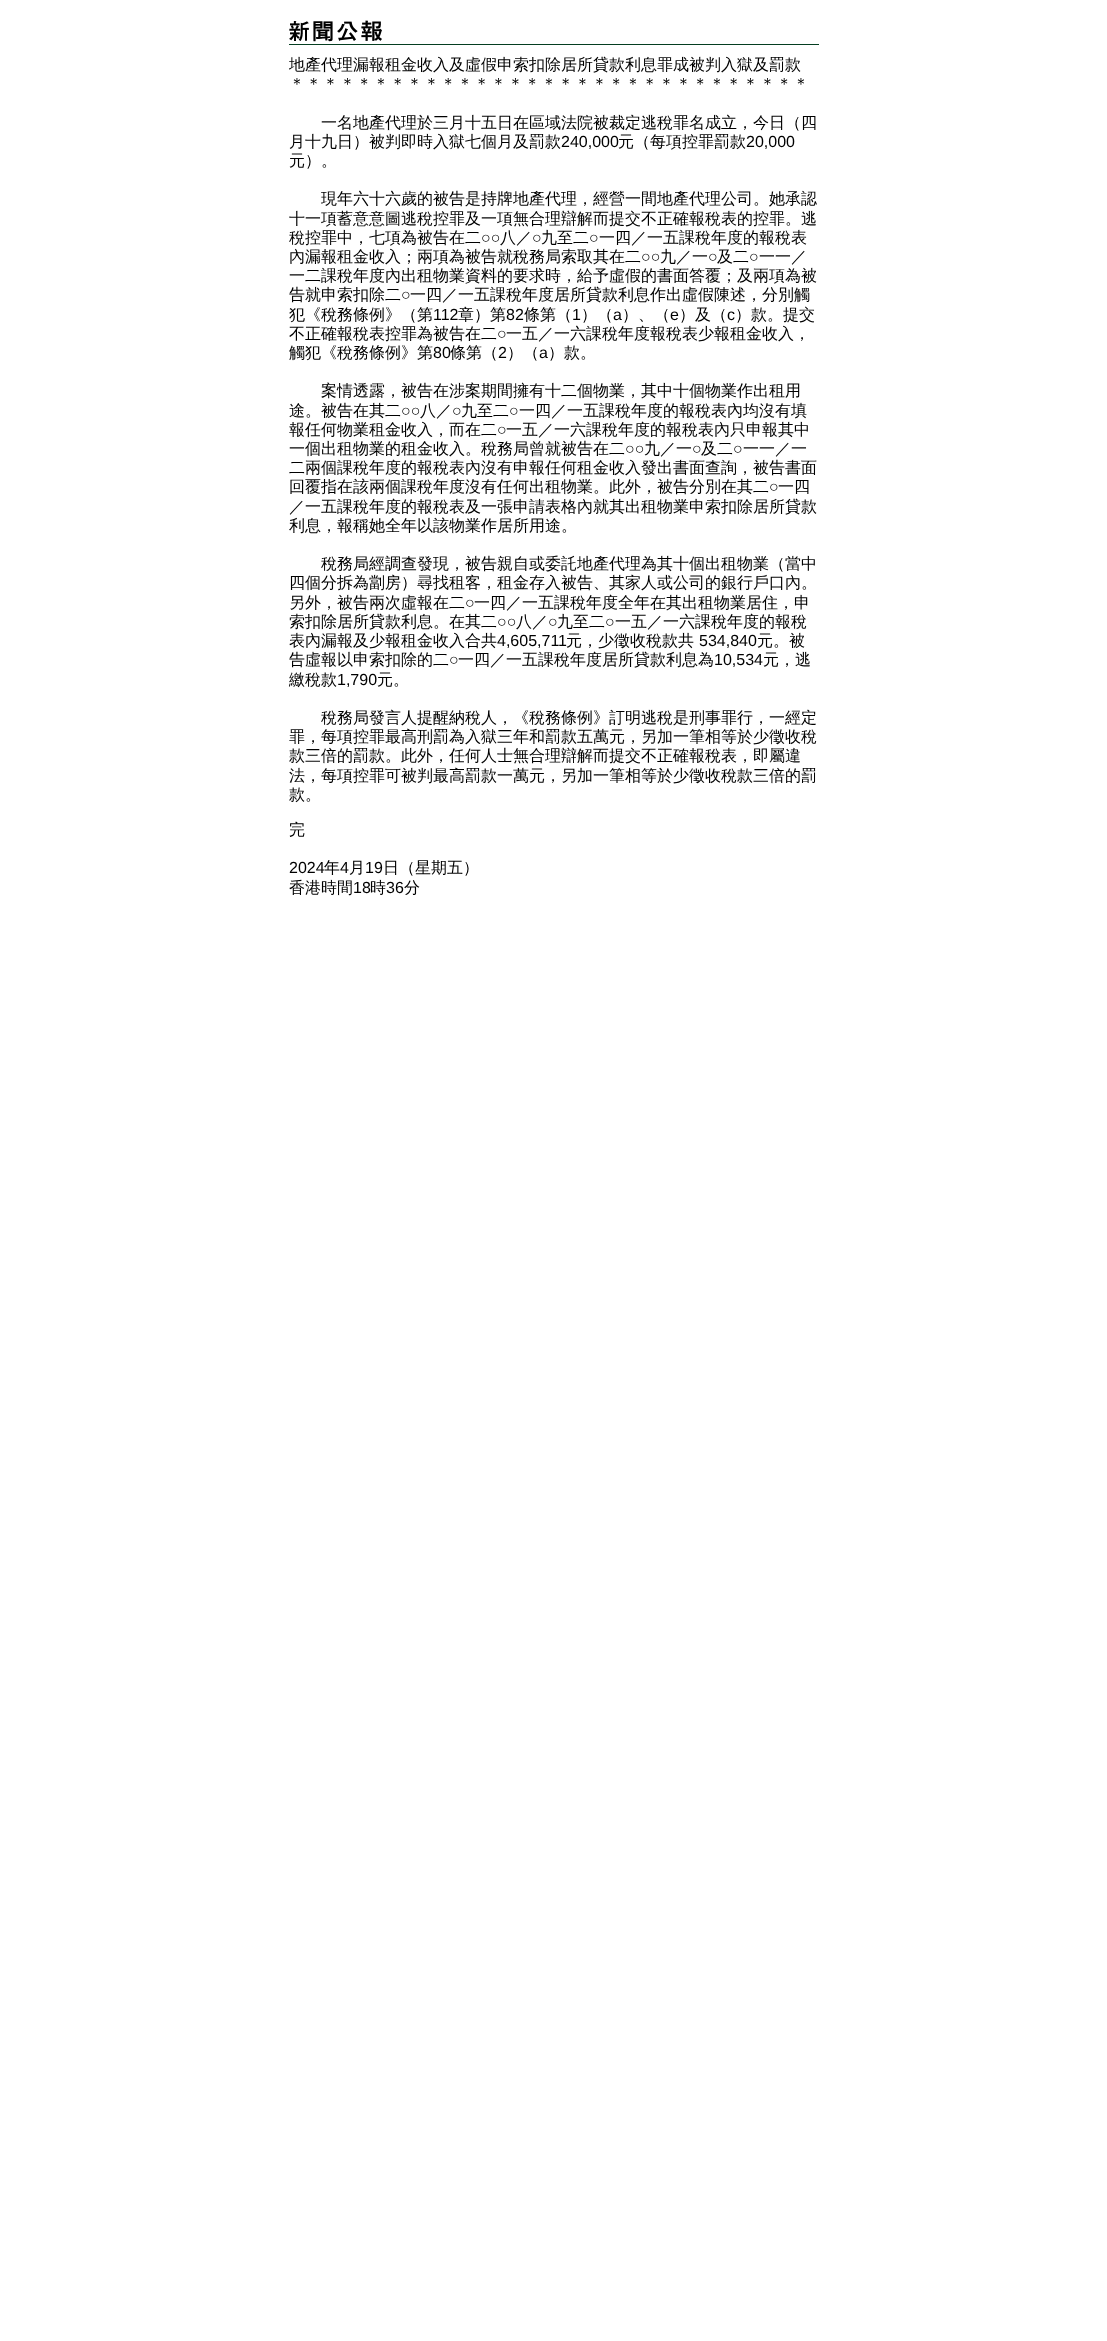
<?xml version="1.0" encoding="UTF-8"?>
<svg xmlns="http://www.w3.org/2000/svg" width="1107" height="2341">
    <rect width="100%" height="100%" fill="#FFFFFF"/>
    <rect x="289" y="44" width="530" height="1" fill="#053E21"/>
    <image x="289" y="20" width="93" height="22" href="img_01.png"/>
    <text x="289" y="70" font-family="WenQuanYi Zen Hei" font-size="16" font-weight="500" fill="#000000">地產代理漏報租金收入及虛假申索扣除居所貸款利息罪成被判入獄及罰款</text>
    <text x="289" y="89" font-family="WenQuanYi Zen Hei" font-size="16" font-weight="500" letter-spacing="0.8" fill="#000000">＊＊＊＊＊＊＊＊＊＊＊＊＊＊＊＊＊＊＊＊＊＊＊＊＊</text>
    <text x="709" y="89" font-family="WenQuanYi Zen Hei" font-size="16" font-weight="500" letter-spacing="0.8" fill="#000000">＊＊＊＊＊＊</text>
    <text x="321" y="128" font-family="WenQuanYi Zen Hei" font-size="16" font-weight="500" fill="#000000">一名地產代理於三月十五日在區域法院被裁定逃稅罪名成立，今日（四</text>
    <text x="289" y="147" font-family="WenQuanYi Zen Hei" font-size="16" font-weight="500" fill="#000000">月十九日）被判即時入獄七個月及罰款</text>
    <text x="561" y="147" font-family="Liberation Sans" font-size="16" fill="#000000">240,000</text>
    <text x="618" y="147" font-family="WenQuanYi Zen Hei" font-size="16" font-weight="500" fill="#000000">元（每項控罪罰款</text>
    <text x="746" y="147" font-family="Liberation Sans" font-size="16" fill="#000000">20,000</text>
    <text x="289" y="166" font-family="WenQuanYi Zen Hei" font-size="16" font-weight="500" fill="#000000">元）。</text>
    <text x="321" y="204" font-family="WenQuanYi Zen Hei" font-size="16" font-weight="500" fill="#000000">現年六十六歲的被告是持牌地產代理，經營一間地產代理公司。她承認</text>
    <text font-family="WenQuanYi Zen Hei" font-size="16" font-weight="500" fill="#000000">
        <tspan x="289" y="224">十一項蓄意意圖逃稅控罪及一項無合理辯解而提交不正確報稅表的控罪。逃</tspan>
        <tspan x="289" y="243">稅控罪中，七項為被告在二</tspan>
    </text>
    <text x="481" y="243" font-family="Liberation Sans" font-size="16" fill="#000000">○○</text>
    <text x="500" y="243" font-family="WenQuanYi Zen Hei" font-size="16" font-weight="500" fill="#000000">八／</text>
    <text x="532" y="243" font-family="Liberation Sans" font-size="16" fill="#000000">○</text>
    <text x="541" y="243" font-family="WenQuanYi Zen Hei" font-size="16" font-weight="500" fill="#000000">九至二</text>
    <text x="589" y="243" font-family="Liberation Sans" font-size="16" fill="#000000">○</text>
    <text x="599" y="243" font-family="WenQuanYi Zen Hei" font-size="16" font-weight="500" fill="#000000">一四／一五課稅年度的報稅表</text>
    <text x="289" y="262" font-family="WenQuanYi Zen Hei" font-size="16" font-weight="500" fill="#000000">內漏報租金收入；兩項為被告就稅務局索取其在二</text>
    <text x="641" y="262" font-family="Liberation Sans" font-size="16" fill="#000000">○○</text>
    <text x="660" y="262" font-family="WenQuanYi Zen Hei" font-size="16" font-weight="500" fill="#000000">九／一</text>
    <text x="708" y="262" font-family="Liberation Sans" font-size="16" fill="#000000">○</text>
    <text x="717" y="262" font-family="WenQuanYi Zen Hei" font-size="16" font-weight="500" fill="#000000">及二</text>
    <text x="749" y="262" font-family="Liberation Sans" font-size="16" fill="#000000">○</text>
    <text x="759" y="262" font-family="WenQuanYi Zen Hei" font-size="16" font-weight="500" fill="#000000">一一／</text>
    <text font-family="WenQuanYi Zen Hei" font-size="16" font-weight="500" fill="#000000">
        <tspan x="289" y="281">一二課稅年度內出租物業資料的要求時，給予虛假的書面答覆；及兩項為被</tspan>
        <tspan x="289" y="300">告就申索扣除二</tspan>
    </text>
    <text x="401" y="300" font-family="Liberation Sans" font-size="16" fill="#000000">○</text>
    <text x="410" y="300" font-family="WenQuanYi Zen Hei" font-size="16" font-weight="500" fill="#000000">一四／一五課稅年度居所貸款利息作出虛假陳述，分別觸</text>
    <text x="289" y="320" font-family="WenQuanYi Zen Hei" font-size="16" font-weight="500" fill="#000000">犯《稅務條例》（第</text>
    <text x="433" y="320" font-family="Liberation Sans" font-size="16" fill="#000000">112</text>
    <text x="458" y="320" font-family="WenQuanYi Zen Hei" font-size="16" font-weight="500" fill="#000000">章）第</text>
    <text x="506" y="320" font-family="Liberation Sans" font-size="16" fill="#000000">82</text>
    <text x="524" y="320" font-family="WenQuanYi Zen Hei" font-size="16" font-weight="500" fill="#000000">條第（</text>
    <text x="572" y="320" font-family="Liberation Sans" font-size="16" fill="#000000">1</text>
    <text x="581" y="320" font-family="WenQuanYi Zen Hei" font-size="16" font-weight="500" fill="#000000">）（</text>
    <text x="613" y="320" font-family="Liberation Sans" font-size="16" fill="#000000">a</text>
    <text x="622" y="320" font-family="WenQuanYi Zen Hei" font-size="16" font-weight="500" fill="#000000">）、（</text>
    <text x="670" y="320" font-family="Liberation Sans" font-size="16" fill="#000000">e</text>
    <text x="679" y="320" font-family="WenQuanYi Zen Hei" font-size="16" font-weight="500" fill="#000000">）及（</text>
    <text x="727" y="320" font-family="Liberation Sans" font-size="16" fill="#000000">c</text>
    <text x="735" y="320" font-family="WenQuanYi Zen Hei" font-size="16" font-weight="500" fill="#000000">）款。提交</text>
    <text x="289" y="339" font-family="WenQuanYi Zen Hei" font-size="16" font-weight="500" fill="#000000">不正確報稅表控罪為被告在二</text>
    <text x="497" y="339" font-family="Liberation Sans" font-size="16" fill="#000000">○</text>
    <text x="506" y="339" font-family="WenQuanYi Zen Hei" font-size="16" font-weight="500" fill="#000000">一五／一六課稅年度報稅表少報租金收入，</text>
    <text x="289" y="358" font-family="WenQuanYi Zen Hei" font-size="16" font-weight="500" fill="#000000">觸犯《稅務條例》第</text>
    <text x="433" y="358" font-family="Liberation Sans" font-size="16" fill="#000000">80</text>
    <text x="450" y="358" font-family="WenQuanYi Zen Hei" font-size="16" font-weight="500" fill="#000000">條第（</text>
    <text x="498" y="358" font-family="Liberation Sans" font-size="16" fill="#000000">2</text>
    <text x="507" y="358" font-family="WenQuanYi Zen Hei" font-size="16" font-weight="500" fill="#000000">）（</text>
    <text x="539" y="358" font-family="Liberation Sans" font-size="16" fill="#000000">a</text>
    <text x="548" y="358" font-family="WenQuanYi Zen Hei" font-size="16" font-weight="500" fill="#000000">）款。</text>
    <text x="321" y="396" font-family="WenQuanYi Zen Hei" font-size="16" font-weight="500" fill="#000000">案情透露，被告在涉案期間擁有十二個物業，其中十個物業作出租用</text>
    <text x="289" y="416" font-family="WenQuanYi Zen Hei" font-size="16" font-weight="500" fill="#000000">途。被告在其二</text>
    <text x="401" y="416" font-family="Liberation Sans" font-size="16" fill="#000000">○○</text>
    <text x="420" y="416" font-family="WenQuanYi Zen Hei" font-size="16" font-weight="500" fill="#000000">八／</text>
    <text x="452" y="416" font-family="Liberation Sans" font-size="16" fill="#000000">○</text>
    <text x="461" y="416" font-family="WenQuanYi Zen Hei" font-size="16" font-weight="500" fill="#000000">九至二</text>
    <text x="509" y="416" font-family="Liberation Sans" font-size="16" fill="#000000">○</text>
    <text x="519" y="416" font-family="WenQuanYi Zen Hei" font-size="16" font-weight="500" fill="#000000">一四／一五課稅年度的報稅表內均沒有填</text>
    <text x="289" y="435" font-family="WenQuanYi Zen Hei" font-size="16" font-weight="500" fill="#000000">報任何物業租金收入，而在二</text>
    <text x="497" y="435" font-family="Liberation Sans" font-size="16" fill="#000000">○</text>
    <text x="506" y="435" font-family="WenQuanYi Zen Hei" font-size="16" font-weight="500" fill="#000000">一五／一六課稅年度的報稅表內只申報其中</text>
    <text x="289" y="454" font-family="WenQuanYi Zen Hei" font-size="16" font-weight="500" fill="#000000">一個出租物業的租金收入。稅務局曾就被告在二</text>
    <text x="625" y="454" font-family="Liberation Sans" font-size="16" fill="#000000">○○</text>
    <text x="644" y="454" font-family="WenQuanYi Zen Hei" font-size="16" font-weight="500" fill="#000000">九／一</text>
    <text x="692" y="454" font-family="Liberation Sans" font-size="16" fill="#000000">○</text>
    <text x="701" y="454" font-family="WenQuanYi Zen Hei" font-size="16" font-weight="500" fill="#000000">及二</text>
    <text x="733" y="454" font-family="Liberation Sans" font-size="16" fill="#000000">○</text>
    <text x="743" y="454" font-family="WenQuanYi Zen Hei" font-size="16" font-weight="500" fill="#000000">一一／一</text>
    <text font-family="WenQuanYi Zen Hei" font-size="16" font-weight="500" fill="#000000">
        <tspan x="289" y="473">二兩個課稅年度的報稅表內沒有申報任何租金收入發出書面查詢，被告書面</tspan>
        <tspan x="289" y="492">回覆指在該兩個課稅年度沒有任何出租物業。此外，被告分別在其二</tspan>
    </text>
    <text x="769" y="492" font-family="Liberation Sans" font-size="16" fill="#000000">○</text>
    <text x="778" y="492" font-family="WenQuanYi Zen Hei" font-size="16" font-weight="500" fill="#000000">一四</text>
    <text font-family="WenQuanYi Zen Hei" font-size="16" font-weight="500" fill="#000000">
        <tspan x="289" y="512">／一五課稅年度的報稅表及一張申請表格內就其出租物業申索扣除居所貸款</tspan>
        <tspan x="289" y="531">利息，報稱她全年以該物業作居所用途。</tspan>
    </text>
    <text x="321" y="569" font-family="WenQuanYi Zen Hei" font-size="16" font-weight="500" fill="#000000">稅務局經調查發現，被告親自或委託地產代理為其十個出租物業（當中</text>
    <text font-family="WenQuanYi Zen Hei" font-size="16" font-weight="500" fill="#000000">
        <tspan x="289" y="588">四個分拆為劏房）尋找租客，租金存入被告、其家人或公司的銀行戶口內。</tspan>
        <tspan x="289" y="608">另外，被告兩次虛報在二</tspan>
    </text>
    <text x="465" y="608" font-family="Liberation Sans" font-size="16" fill="#000000">○</text>
    <text x="474" y="608" font-family="WenQuanYi Zen Hei" font-size="16" font-weight="500" fill="#000000">一四／一五課稅年度全年在其出租物業居住，申</text>
    <text x="289" y="627" font-family="WenQuanYi Zen Hei" font-size="16" font-weight="500" fill="#000000">索扣除居所貸款利息。在其二</text>
    <text x="497" y="627" font-family="Liberation Sans" font-size="16" fill="#000000">○○</text>
    <text x="516" y="627" font-family="WenQuanYi Zen Hei" font-size="16" font-weight="500" fill="#000000">八／</text>
    <text x="548" y="627" font-family="Liberation Sans" font-size="16" fill="#000000">○</text>
    <text x="557" y="627" font-family="WenQuanYi Zen Hei" font-size="16" font-weight="500" fill="#000000">九至二</text>
    <text x="605" y="627" font-family="Liberation Sans" font-size="16" fill="#000000">○</text>
    <text x="615" y="627" font-family="WenQuanYi Zen Hei" font-size="16" font-weight="500" fill="#000000">一五／一六課稅年度的報稅</text>
    <text x="289" y="646" font-family="WenQuanYi Zen Hei" font-size="16" font-weight="500" fill="#000000">表內漏報及少報租金收入合共</text>
    <text x="497" y="646" font-family="Liberation Sans" font-size="16" fill="#000000">4,605,711</text>
    <text x="566" y="646" font-family="WenQuanYi Zen Hei" font-size="16" font-weight="500" fill="#000000">元，少徵收稅款共</text>
    <text x="699" y="646" font-family="Liberation Sans" font-size="16" fill="#000000">534,840</text>
    <text x="757" y="646" font-family="WenQuanYi Zen Hei" font-size="16" font-weight="500" fill="#000000">元。被</text>
    <text x="289" y="665" font-family="WenQuanYi Zen Hei" font-size="16" font-weight="500" fill="#000000">告虛報以申索扣除的二</text>
    <text x="449" y="665" font-family="Liberation Sans" font-size="16" fill="#000000">○</text>
    <text x="458" y="665" font-family="WenQuanYi Zen Hei" font-size="16" font-weight="500" fill="#000000">一四／一五課稅年度居所貸款利息為</text>
    <text x="714" y="665" font-family="Liberation Sans" font-size="16" fill="#000000">10,534</text>
    <text x="763" y="665" font-family="WenQuanYi Zen Hei" font-size="16" font-weight="500" fill="#000000">元，逃</text>
    <text x="289" y="685" font-family="WenQuanYi Zen Hei" font-size="16" font-weight="500" fill="#000000">繳稅款</text>
    <text x="337" y="685" font-family="Liberation Sans" font-size="16" fill="#000000">1,790</text>
    <text x="377" y="685" font-family="WenQuanYi Zen Hei" font-size="16" font-weight="500" fill="#000000">元。</text>
    <text x="321" y="723" font-family="WenQuanYi Zen Hei" font-size="16" font-weight="500" fill="#000000">稅務局發言人提醒納稅人，《稅務條例》訂明逃稅是刑事罪行，一經定</text>
    <text font-family="WenQuanYi Zen Hei" font-size="16" font-weight="500" fill="#000000">
        <tspan x="289" y="742">罪，每項控罪最高刑罰為入獄三年和罰款五萬元，另加一筆相等於少徵收稅</tspan>
        <tspan x="289" y="761">款三倍的罰款。此外，任何人士無合理辯解而提交不正確報稅表，即屬違</tspan>
        <tspan x="289" y="781">法，每項控罪可被判最高罰款一萬元，另加一筆相等於少徵收稅款三倍的罰</tspan>
        <tspan x="289" y="800">款。</tspan>
    </text>
    <text x="289" y="835" font-family="WenQuanYi Zen Hei" font-size="16" font-weight="500" fill="#000000">完</text>
    <text x="289" y="873" font-family="Liberation Sans" font-size="16" fill="#000000">2024</text>
    <text x="324" y="873" font-family="WenQuanYi Zen Hei" font-size="16" font-weight="500" fill="#000000">年</text>
    <text x="340" y="873" font-family="Liberation Sans" font-size="16" fill="#000000">4</text>
    <text x="349" y="873" font-family="WenQuanYi Zen Hei" font-size="16" font-weight="500" fill="#000000">月</text>
    <text x="365" y="873" font-family="Liberation Sans" font-size="16" fill="#000000">19</text>
    <text x="383" y="873" font-family="WenQuanYi Zen Hei" font-size="16" font-weight="500" fill="#000000">日（星期五）</text>
    <text x="289" y="893" font-family="WenQuanYi Zen Hei" font-size="16" font-weight="500" fill="#000000">香港時間</text>
    <text x="353" y="893" font-family="Liberation Sans" font-size="16" fill="#000000">18</text>
    <text x="370" y="893" font-family="WenQuanYi Zen Hei" font-size="16" font-weight="500" fill="#000000">時</text>
    <text x="386" y="893" font-family="Liberation Sans" font-size="16" fill="#000000">36</text>
    <text x="404" y="893" font-family="WenQuanYi Zen Hei" font-size="16" font-weight="500" fill="#000000">分</text>
</svg>
